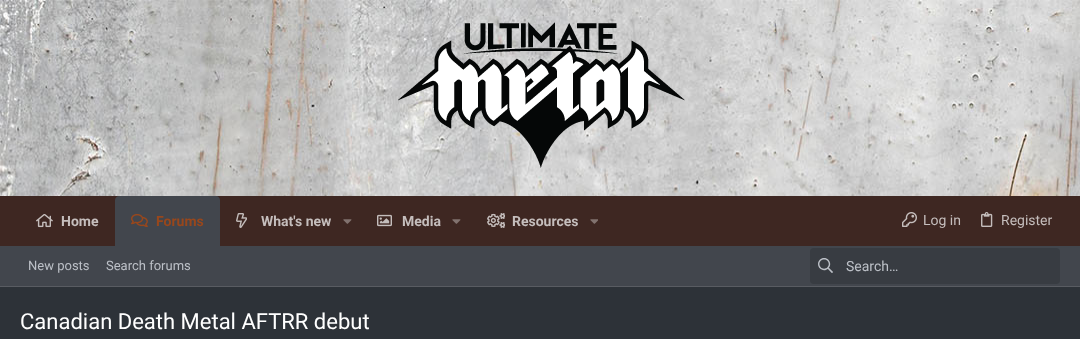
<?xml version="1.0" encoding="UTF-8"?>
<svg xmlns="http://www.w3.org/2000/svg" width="1080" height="339">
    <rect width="100%" height="100%" fill="#2D3238"/>
    <image x="0" y="0" width="1080" height="196" href="img_01.png"/>
    <image x="398" y="22" width="287" height="146" href="img_02.png"/>
    <rect x="0" y="196" width="1080" height="50" fill="#3E2722"/>
    <image x="36" y="214" width="17" height="14" href="img_03.png"/>
    <text x="61" y="226" font-family="Roboto" font-size="14" font-weight="700" fill="#C5BEBD">Home</text>
    <path d="M 119 196 H 216 C 218 196 220 198 220 200 V 246 H 115 V 200 C 115 198 117 196 119 196 Z" fill="#42464D"/>
    <image x="131" y="214" width="17" height="13" href="img_04.png"/>
    <text x="156" y="226" font-family="Roboto" font-size="14" font-weight="700" fill="#98471C">Forums</text>
    <image x="236" y="213" width="11" height="15" href="img_05.png"/>
    <text x="261" y="226" font-family="Roboto" font-size="14" font-weight="700" fill="#C5BEBD">What's new</text>
    <image x="343" y="219" width="9" height="5" href="img_06.png"/>
    <image x="377" y="214" width="15" height="13" href="img_07.png"/>
    <text x="402" y="226" font-family="Roboto" font-size="14" font-weight="700" fill="#C5BEBD">Media</text>
    <image x="452" y="219" width="9" height="5" href="img_06.png"/>
    <image x="487" y="213" width="18" height="15" href="img_08.png"/>
    <text x="512" y="226" font-family="Roboto" font-size="14" font-weight="700" fill="#C5BEBD">Resources</text>
    <image x="590" y="219" width="8" height="5" href="img_09.png"/>
    <image x="902" y="212" width="15" height="15" href="img_10.png"/>
    <text x="923" y="225" font-family="Roboto" font-size="14" fill="#C5BEBD">Log in</text>
    <image x="981" y="212" width="12" height="15" href="img_11.png"/>
    <text x="1001" y="225" font-family="Roboto" font-size="14" fill="#C5BEBD">Register</text>
    <rect x="0" y="246" width="1080" height="40" fill="#42464D"/>
    <rect x="0" y="286" width="1080" height="1" fill="#595C62"/>
    <text x="28" y="270" font-family="Roboto" font-size="13" fill="#BCC0C7">New posts</text>
    <text x="106" y="270" font-family="Roboto" font-size="13" fill="#BCC0C7">Search forums</text>
    <rect x="810" y="248" width="250" height="36" rx="4" fill="#383C42"/>
    <image x="818" y="258" width="15" height="15" href="img_12.png"/>
    <text x="846" y="271" font-family="Roboto" font-size="14" fill="#BCC0C7">Search…</text>
    <text x="20" y="329" font-family="Roboto" font-size="22" fill="#FFFFFF">Canadian Death Metal AFTRR debut</text>
</svg>
